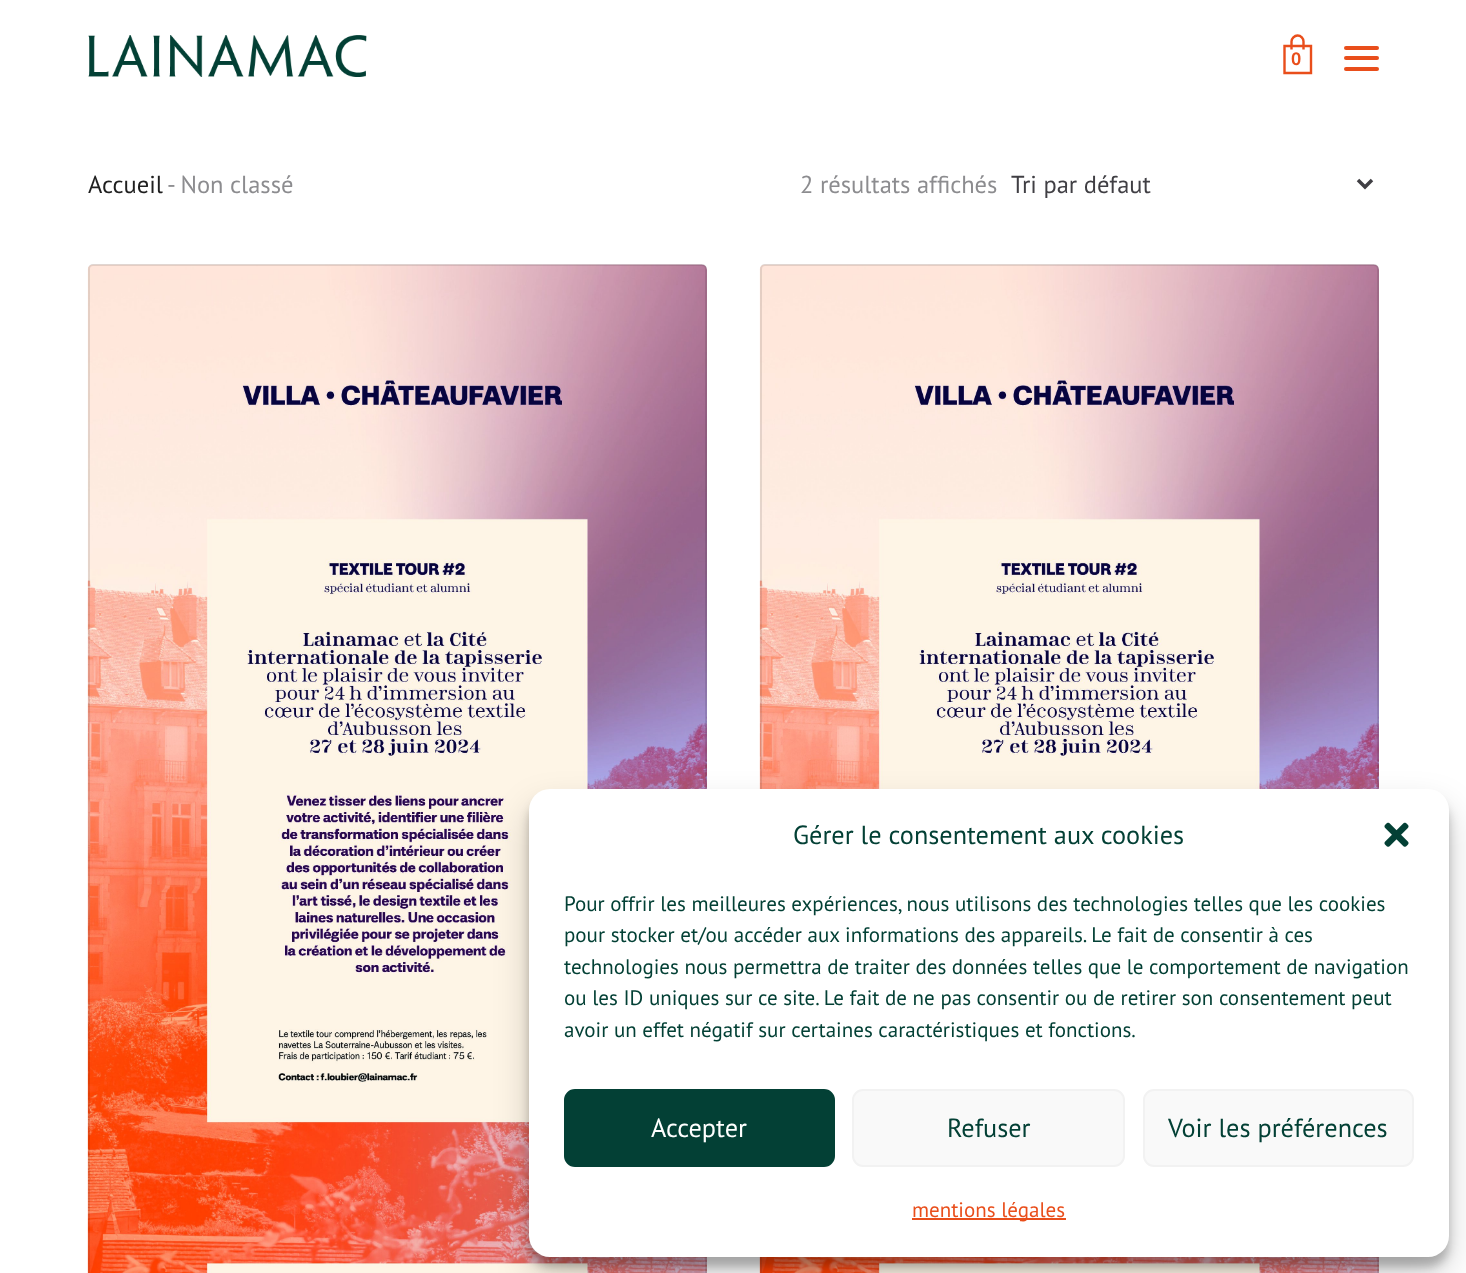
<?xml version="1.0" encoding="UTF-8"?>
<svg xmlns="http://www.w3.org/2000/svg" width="1466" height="1273">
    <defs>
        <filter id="blur1" x="-50%" y="-200%" width="200%" height="500%"><feGaussianBlur stdDeviation="5"/></filter>
        <filter id="blur2" x="-50%" y="-200%" width="200%" height="500%"><feGaussianBlur stdDeviation="17.5"/></filter>
    </defs>
    <rect width="100%" height="100%" fill="#FFFFFF"/>
    <image x="88" y="35" width="279" height="42" href="img_01.png"/>
    <path d="M 1305 46 H 1311 V 73 H 1284.5 V 46 H 1290.5 Z M 1291.5 49.5 V 41.5 C 1291.5 38.5 1294.5 35.5 1297.5 35.5 C 1301 35.5 1303.5 38.5 1303.5 41.5 V 49.5" fill="none" stroke="#E94E1B" stroke-width="2.4"/>
    <text x="1291" y="65" font-family="PT Sans" font-size="18" font-weight="700" fill="#E94E1B">0</text>
    <rect x="1344" y="46" width="35" height="4" rx="2" fill="#E94E1B"/>
    <rect x="1344" y="56" width="35" height="4" rx="2" fill="#E94E1B"/>
    <rect x="1344" y="67" width="35" height="4" rx="2" fill="#E94E1B"/>
    <text x="88" y="193" font-family="PT Sans" font-size="24.5" fill="#1F1F1F">Accueil</text>
    <text x="167" y="193" font-family="PT Sans" font-size="24.5" fill="#8C8C8F">- Non classé</text>
    <text x="800" y="193" font-family="PT Sans" font-size="24.5" fill="#8C8C8F">2 résultats affichés</text>
    <path d="M 1358 180 L 1365 187 L 1372 180" fill="none" stroke="#403F44" stroke-width="3.5"/>
    <text x="1011" y="193" font-family="PT Sans" font-size="24.5" fill="#403F44">Tri par défaut</text>
    <rect x="88" y="264" width="619" height="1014" rx="5" fill="#F6F6F6"/>
    <image x="87" y="264" width="620" height="1009" href="img_02.png"/>
    <rect x="89" y="265" width="617" height="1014" rx="4" fill="none" stroke="#000000" stroke-opacity="0.1" stroke-width="2"/>
    <rect x="760" y="264" width="619" height="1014" rx="5" fill="#F6F6F6"/>
    <image x="759" y="264" width="620" height="1009" href="img_03.png"/>
    <rect x="761" y="265" width="617" height="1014" rx="4" fill="none" stroke="#000000" stroke-opacity="0.1" stroke-width="2"/>
    <rect x="529" y="800" width="920" height="467" rx="21" fill="#000000" fill-opacity="0.23" filter="url(#blur1)"/>
    <rect x="529" y="807" width="920" height="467" rx="21" fill="#000000" fill-opacity="0.19" filter="url(#blur2)"/>
    <rect x="529" y="789" width="920" height="468" rx="21" fill="#FFFFFF"/>
    <text x="793" y="844" font-family="PT Sans" font-size="26.25" fill="#034035">Gérer le consentement aux cookies</text>
    <image x="1384" y="822" width="25" height="25" href="img_04.png"/>
    <text font-family="PT Sans" font-size="21" fill="#034035">
        <tspan x="564" y="911">Pour offrir les meilleures expériences, nous utilisons des technologies telles que les cookies</tspan>
        <tspan x="564" y="942">pour stocker et/ou accéder aux informations des appareils. Le fait de consentir à ces</tspan>
        <tspan x="564" y="974">technologies nous permettra de traiter des données telles que le comportement de navigation</tspan>
        <tspan x="564" y="1005">ou les ID uniques sur ce site. Le fait de ne pas consentir ou de retirer son consentement peut</tspan>
        <tspan x="564" y="1037">avoir un effet négatif sur certaines caractéristiques et fonctions.</tspan>
    </text>
    <rect x="565" y="1090" width="269" height="76" rx="10" fill="#034035" stroke="#034035" stroke-width="2"/>
    <text x="651" y="1137" font-family="PT Sans" font-size="26.25" fill="#FFFFFF">Accepter</text>
    <rect x="853" y="1090" width="271" height="76" rx="10" fill="#F9F9F9" stroke="#F2F2F2" stroke-width="2"/>
    <text x="947" y="1137" font-family="PT Sans" font-size="26.25" fill="#034035">Refuser</text>
    <rect x="1144" y="1090" width="269" height="76" rx="10" fill="#F9F9F9" stroke="#F2F2F2" stroke-width="2"/>
    <text x="1168" y="1137" font-family="PT Sans" font-size="26.25" fill="#034035">Voir les préférences</text>
    <rect x="912" y="1218" width="154" height="2" fill="#E94E1B"/>
    <text x="912" y="1217" font-family="PT Sans" font-size="21" fill="#E94E1B">mentions légales</text>
</svg>
